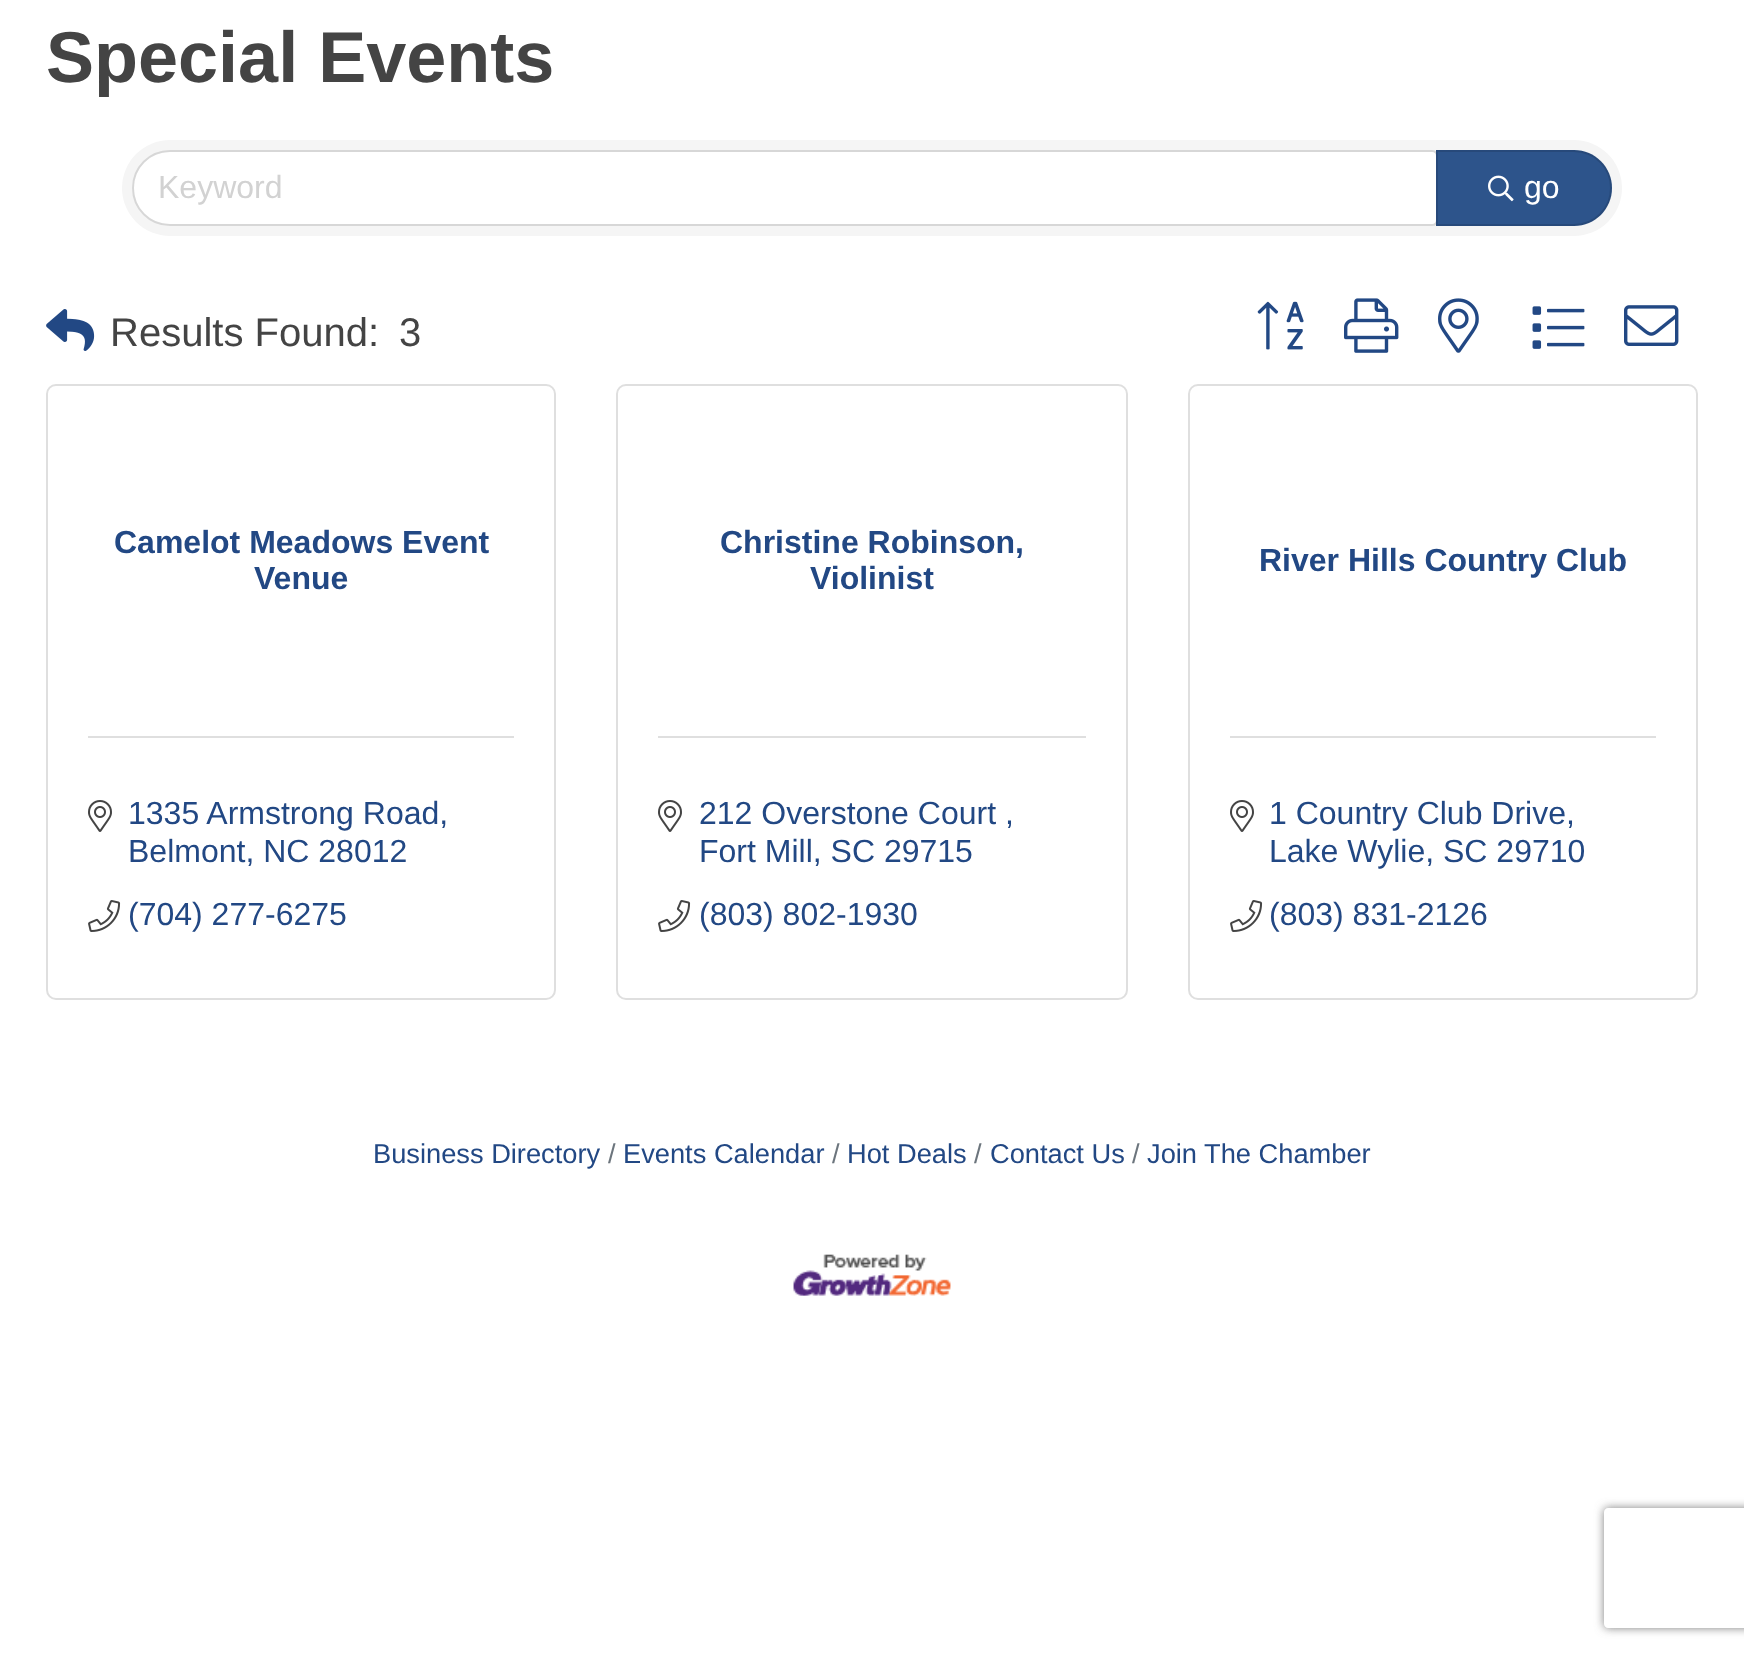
<?xml version="1.0" encoding="UTF-8"?>
<svg xmlns="http://www.w3.org/2000/svg" width="1744" height="1655">
    <defs>
        <clipPath id="clip1"><path d="M 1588 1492 H 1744 V 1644 H 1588 Z M 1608 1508 H 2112 C 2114 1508 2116 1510 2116 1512 V 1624 C 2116 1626 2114 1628 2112 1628 H 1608 C 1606 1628 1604 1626 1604 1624 V 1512 C 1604 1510 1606 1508 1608 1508 Z" clip-rule="evenodd"/></clipPath>
        <filter id="blur1" x="-50%" y="-200%" width="200%" height="500%"><feGaussianBlur stdDeviation="5"/></filter>
    </defs>
    <rect width="100%" height="100%" fill="#FFFFFF"/>
    <text x="46" y="82" font-family="Liberation Sans" font-size="72" font-weight="700" fill="#444444">Special Events</text>
    <rect x="122" y="140" width="1500" height="96" rx="48" fill="#F5F5F5"/>
    <path d="M 170 152 H 1432 C 1434 152 1436 154 1436 156 V 220 C 1436 222 1434 224 1432 224 H 170 C 150 224 134 208 134 188 C 134 168 150 152 170 152 Z" fill="#FFFFFF"/>
    <path d="M 170 151 H 1432 C 1435 151 1437 153 1437 156 V 220 C 1437 223 1435 225 1432 225 H 170 C 149.5 225 133 208.5 133 188 C 133 167.5 149.5 151 170 151 Z" fill="none" stroke="#000000" stroke-opacity="0.12" stroke-width="2"/>
    <text x="158" y="198" font-family="Liberation Sans" font-size="32" fill="#D2D2D2">Keyword</text>
    <path d="M 1436 150 H 1574 C 1595 150 1612 167 1612 188 C 1612 209 1595 226 1574 226 H 1436 Z" fill="#2D548B"/>
    <path d="M 1437 151 H 1574 C 1594.5 151 1611 167.5 1611 188 C 1611 208.5 1594.5 225 1574 225 H 1437 Z" fill="none" stroke="#000000" stroke-opacity="0.12" stroke-width="2"/>
    <image x="1488" y="175" width="26" height="27" href="img_01.png"/>
    <text x="1524" y="198" font-family="Liberation Sans" font-size="32" fill="#FFFFFF">go</text>
    <image x="46" y="309" width="49" height="42" href="img_02.png"/>
    <text x="110" y="346" font-family="Liberation Sans" font-size="40" fill="#444444">Results Found:</text>
    <text x="399" y="346" font-family="Liberation Sans" font-size="40" fill="#444444">3</text>
    <image x="1257" y="301" width="47" height="49" href="img_03.png"/>
    <image x="1344" y="298" width="55" height="55" href="img_04.png"/>
    <image x="1438" y="298" width="41" height="55" href="img_05.png"/>
    <image x="1532" y="306" width="53" height="43" href="img_06.png"/>
    <image x="1624" y="305" width="55" height="41" href="img_07.png"/>
    <rect x="47" y="385" width="508" height="614" rx="9" fill="none" stroke="#DFDFDF" stroke-width="2"/>
    <text x="114" y="553" font-family="Liberation Sans" font-size="32" font-weight="700" fill="#224884">Camelot Meadows Event</text>
    <text x="254" y="589" font-family="Liberation Sans" font-size="32" font-weight="700" fill="#224884">Venue</text>
    <rect x="88" y="736" width="426" height="2" fill="#DFDFDF"/>
    <image x="88" y="800" width="24" height="32" href="img_08.png"/>
    <text font-family="Liberation Sans" font-size="32" fill="#224884">
        <tspan x="128" y="824">1335 Armstrong Road,</tspan>
        <tspan x="128" y="862">Belmont, NC 28012</tspan>
    </text>
    <image x="88" y="900" width="33" height="32" href="img_09.png"/>
    <text x="128" y="925" font-family="Liberation Sans" font-size="32" fill="#224884">(704) 277-6275</text>
    <rect x="617" y="385" width="510" height="614" rx="9" fill="none" stroke="#DFDFDF" stroke-width="2"/>
    <text x="720" y="553" font-family="Liberation Sans" font-size="32" font-weight="700" fill="#224884">Christine Robinson,</text>
    <text x="810" y="589" font-family="Liberation Sans" font-size="32" font-weight="700" fill="#224884">Violinist</text>
    <rect x="658" y="736" width="428" height="2" fill="#DFDFDF"/>
    <image x="658" y="800" width="24" height="32" href="img_08.png"/>
    <text font-family="Liberation Sans" font-size="32" fill="#224884">
        <tspan x="699" y="824">212 Overstone Court ,</tspan>
        <tspan x="699" y="862">Fort Mill, SC 29715</tspan>
    </text>
    <image x="658" y="900" width="33" height="32" href="img_09.png"/>
    <text x="699" y="925" font-family="Liberation Sans" font-size="32" fill="#224884">(803) 802-1930</text>
    <rect x="1189" y="385" width="508" height="614" rx="9" fill="none" stroke="#DFDFDF" stroke-width="2"/>
    <text x="1259" y="571" font-family="Liberation Sans" font-size="32" font-weight="700" fill="#224884">River Hills Country Club</text>
    <rect x="1230" y="736" width="426" height="2" fill="#DFDFDF"/>
    <image x="1230" y="800" width="24" height="32" href="img_08.png"/>
    <text font-family="Liberation Sans" font-size="32" fill="#224884">
        <tspan x="1269" y="824">1 Country Club Drive,</tspan>
        <tspan x="1269" y="862">Lake Wylie, SC 29710</tspan>
    </text>
    <image x="1230" y="900" width="33" height="32" href="img_09.png"/>
    <text x="1269" y="925" font-family="Liberation Sans" font-size="32" fill="#224884">(803) 831-2126</text>
    <text x="373" y="1163" font-family="Liberation Sans" font-size="27.25" fill="#224884">Business Directory</text>
    <text x="608" y="1163" font-family="Liberation Sans" font-size="27.25" fill="#6C757D">/</text>
    <text x="623" y="1163" font-family="Liberation Sans" font-size="27.25" fill="#224884">Events Calendar</text>
    <text x="832" y="1163" font-family="Liberation Sans" font-size="27.25" fill="#6C757D">/</text>
    <text x="847" y="1163" font-family="Liberation Sans" font-size="27.25" fill="#224884">Hot Deals</text>
    <text x="974" y="1163" font-family="Liberation Sans" font-size="27.25" fill="#6C757D">/</text>
    <text x="990" y="1163" font-family="Liberation Sans" font-size="27.25" fill="#224884">Contact Us</text>
    <text x="1132" y="1163" font-family="Liberation Sans" font-size="27.25" fill="#6C757D">/</text>
    <text x="1147" y="1163" font-family="Liberation Sans" font-size="27.25" fill="#224884">Join The Chamber</text>
    <image x="793" y="1254" width="158" height="42" href="img_10.png"/>
    <g clip-path="url(#clip1)">
        <rect x="1604" y="1508" width="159" height="120" rx="4" fill="#808080" filter="url(#blur1)"/>
    </g>
</svg>
